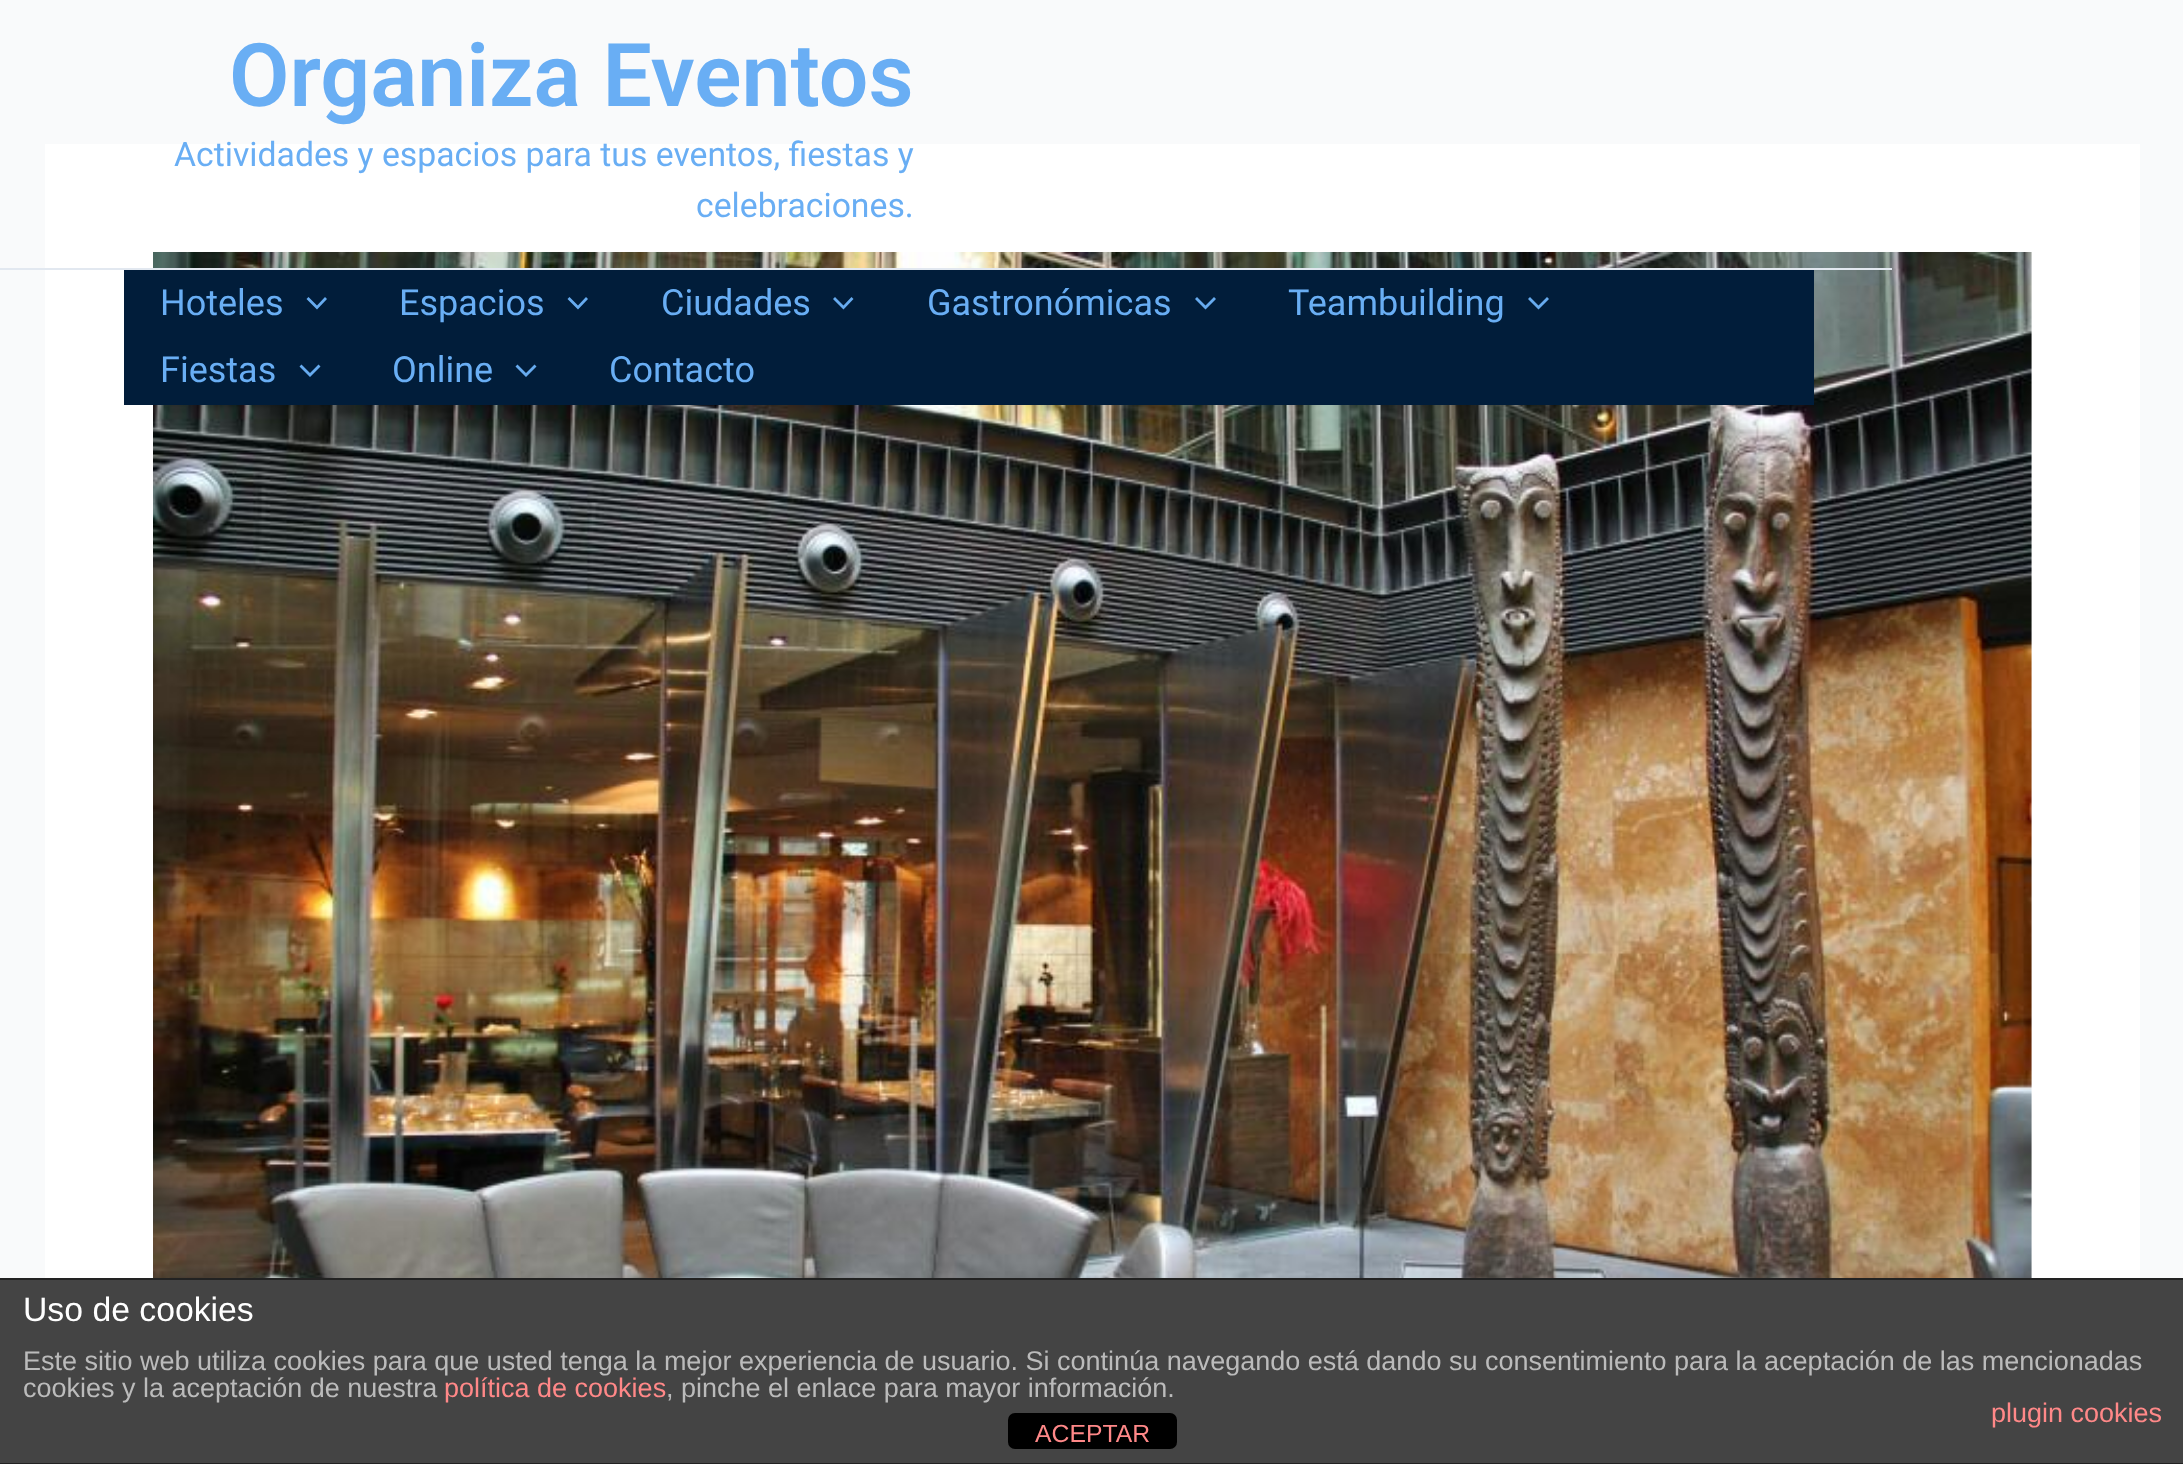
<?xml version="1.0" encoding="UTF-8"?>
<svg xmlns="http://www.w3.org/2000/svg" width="2183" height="1464">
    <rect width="100%" height="100%" fill="#F9FAFB"/>
    <rect x="45" y="144" width="2095" height="1134" fill="#FFFFFF"/>
    <image x="153" y="252" width="1879" height="1026" href="img_01.png"/>
    <rect x="0" y="268" width="1892" height="2" fill="#E2E8F0"/>
    <text x="229" y="106" font-family="Roboto" font-size="87.75" font-weight="600" fill="#69AEF4">Organiza Eventos</text>
    <text x="174" y="166" font-family="Roboto" font-size="33.75" fill="#69AEF4">Actividades y espacios para tus eventos, fiestas y</text>
    <text x="696" y="217" font-family="Roboto" font-size="33.75" fill="#69AEF4">celebraciones.</text>
    <rect x="124" y="270" width="1690" height="135" fill="#011D3A"/>
    <text x="160" y="315" font-family="Roboto" font-size="36" fill="#69AEF4">Hoteles</text>
    <path d="M 306.5 299 L 317 309.5 L 327 299 L 325 297 L 317 305.5 L 308.5 297 Z" fill="#67ABEF"/>
    <text x="399" y="315" font-family="Roboto" font-size="36" fill="#69AEF4">Espacios</text>
    <path d="M 567.5 299 L 578 309.5 L 588 299 L 586 297 L 578 305.5 L 569.5 297 Z" fill="#67ABEF"/>
    <text x="661" y="315" font-family="Roboto" font-size="36" fill="#69AEF4">Ciudades</text>
    <path d="M 833 299 L 843.5 309.5 L 853.5 299 L 851.5 297 L 843.5 305.5 L 835 297 Z" fill="#67ABEF"/>
    <text x="927" y="315" font-family="Roboto" font-size="36" fill="#69AEF4">Gastronómicas</text>
    <path d="M 1195 299 L 1205.5 309.5 L 1216 299 L 1214 297 L 1205.5 305.5 L 1197 297 Z" fill="#67ABEF"/>
    <text x="1288" y="315" font-family="Roboto" font-size="36" fill="#69AEF4">Teambuilding</text>
    <path d="M 1528 299 L 1538.5 309.5 L 1549 299 L 1547 297 L 1538.5 305.5 L 1530 297 Z" fill="#67ABEF"/>
    <text x="160" y="382" font-family="Roboto" font-size="36" fill="#69AEF4">Fiestas</text>
    <path d="M 299.5 366.5 L 310 377 L 320.5 366.5 L 318.5 364.5 L 310 373 L 301.5 364.5 Z" fill="#67ABEF"/>
    <text x="392" y="382" font-family="Roboto" font-size="36" fill="#69AEF4">Online</text>
    <path d="M 515.5 366.5 L 526 377 L 536.5 366.5 L 534.5 364.5 L 526 373 L 517.5 364.5 Z" fill="#67ABEF"/>
    <text x="609" y="382" font-family="Roboto" font-size="36" fill="#69AEF4">Contacto</text>
    <rect x="0" y="1280" width="2183" height="183" fill="#444444"/>
    <rect x="0" y="1278" width="2183" height="2" fill="#222222"/>
    <rect x="0" y="1463" width="2183" height="1" fill="#222222"/>
    <text x="23" y="1321" font-family="Liberation Sans" font-size="33.75" fill="#FFFFFF">Uso de cookies</text>
    <text font-family="Liberation Sans" font-size="27" fill="#BBBBBB">
        <tspan x="23" y="1370">Este sitio web utiliza cookies para que usted tenga la mejor experiencia de usuario. Si continúa navegando está dando su consentimiento para la aceptación de las mencionadas</tspan>
        <tspan x="23" y="1397">cookies y la aceptación de nuestra</tspan>
    </text>
    <text x="444" y="1397" font-family="Liberation Sans" font-size="27" fill="#FF8888">política de cookies</text>
    <text x="666" y="1397" font-family="Liberation Sans" font-size="27" fill="#BBBBBB">, pinche el enlace para mayor información.</text>
    <text x="1991" y="1422" font-family="Liberation Sans" font-size="27" fill="#FF8888">plugin cookies</text>
    <rect x="1008" y="1413" width="169" height="36" rx="7" fill="#000000"/>
    <text x="1035" y="1442" font-family="Liberation Sans" font-size="24.75" fill="#FF8888">ACEPTAR</text>
</svg>
